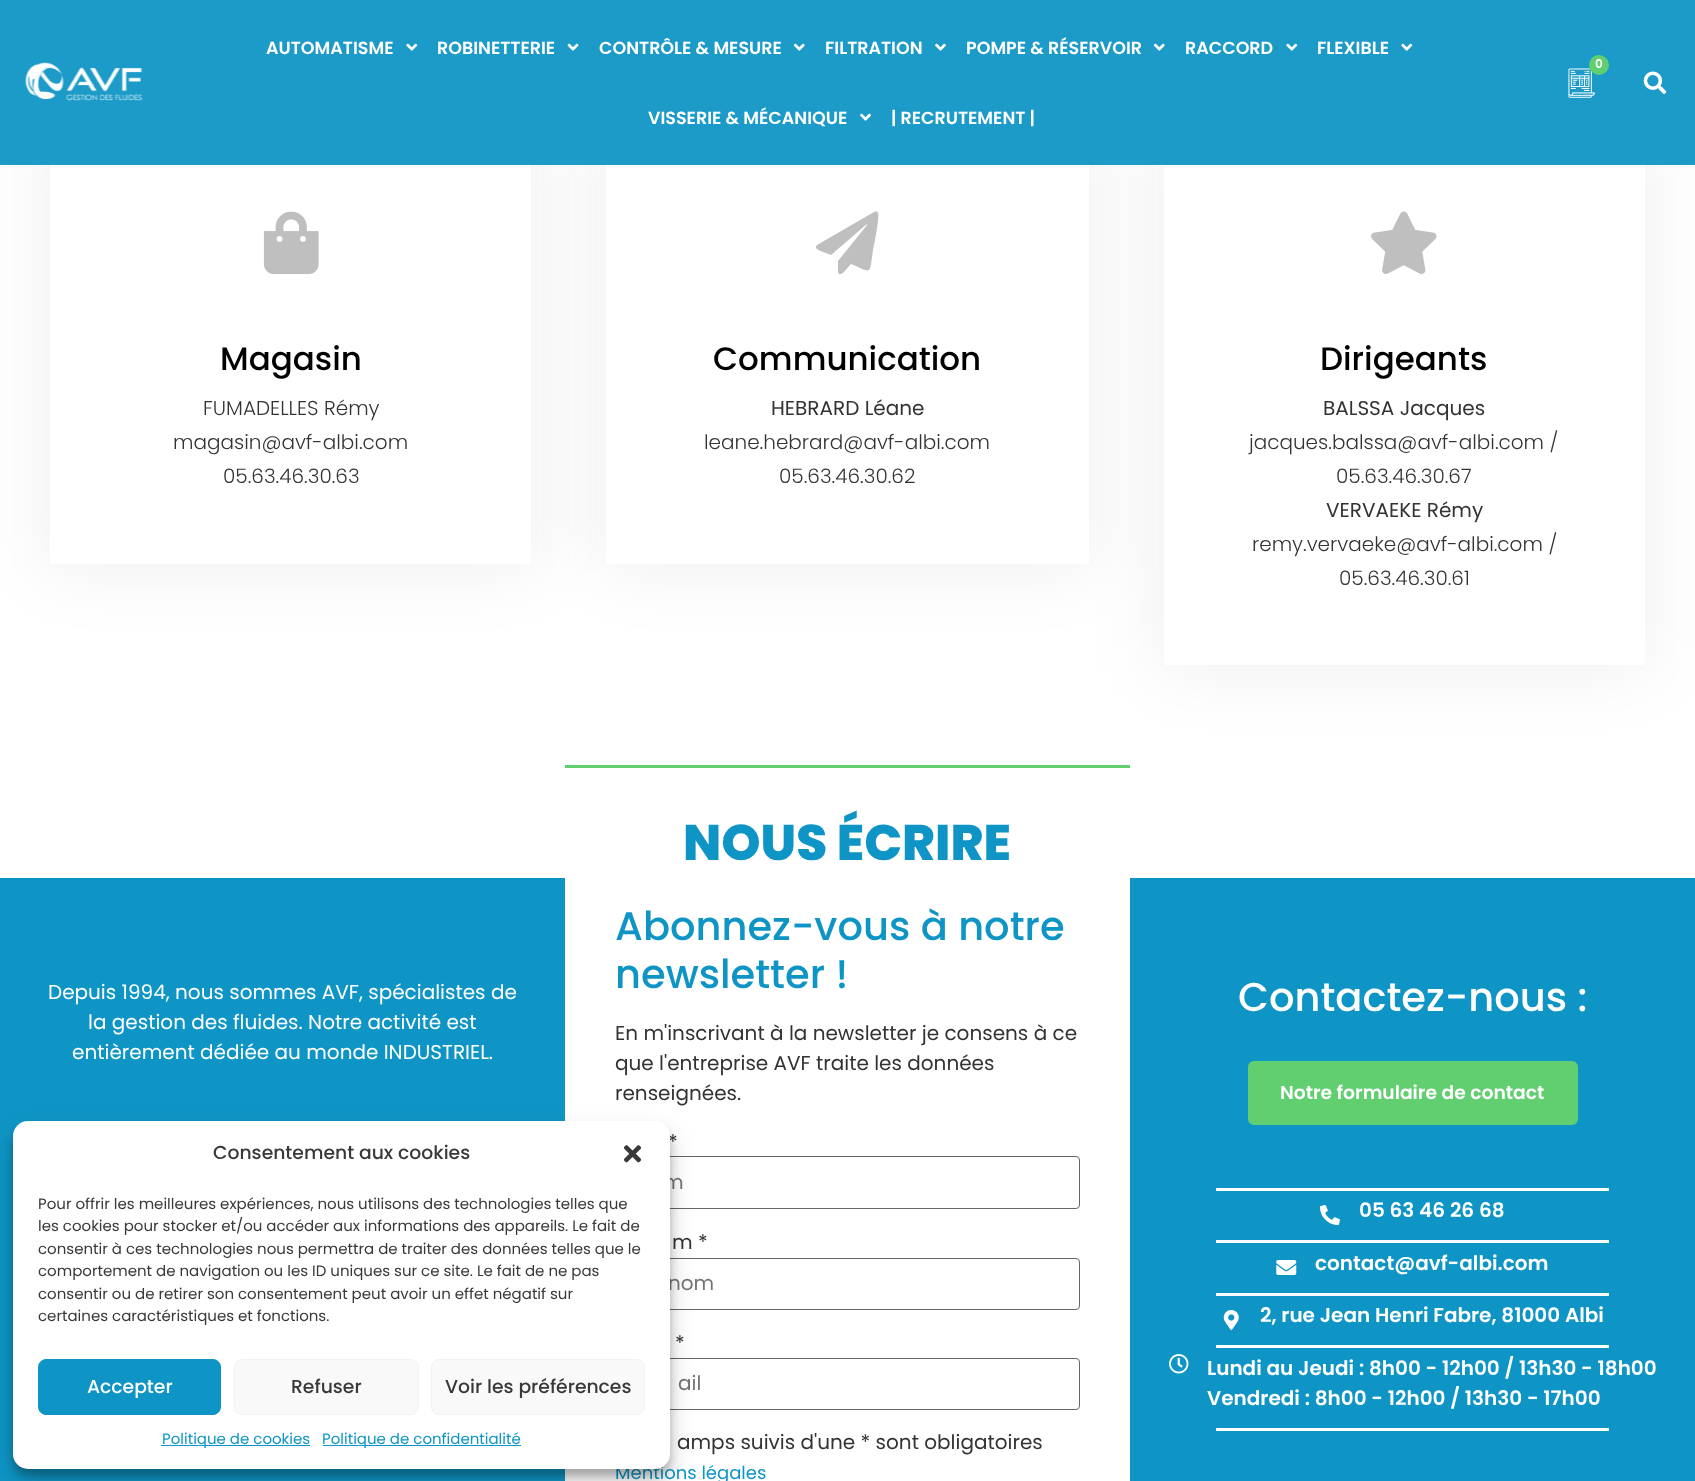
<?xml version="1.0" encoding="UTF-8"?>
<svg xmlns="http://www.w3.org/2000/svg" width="1695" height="1481">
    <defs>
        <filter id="blur1" x="-50%" y="-200%" width="200%" height="500%"><feGaussianBlur stdDeviation="34.5"/></filter>
        <filter id="blur2" x="-50%" y="-200%" width="200%" height="500%"><feGaussianBlur stdDeviation="4"/></filter>
        <filter id="blur3" x="-50%" y="-200%" width="200%" height="500%"><feGaussianBlur stdDeviation="12.5"/></filter>
    </defs>
    <rect width="100%" height="100%" fill="#FFFFFF"/>
    <rect x="31" y="-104" width="503" height="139" fill="#000000" fill-opacity="0.06" filter="url(#blur1)"/>
    <rect x="38" y="0" width="490" height="29" fill="#FFFFFF"/>
    <rect x="596" y="-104" width="503" height="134" fill="#000000" fill-opacity="0.06" filter="url(#blur1)"/>
    <rect x="603" y="0" width="490" height="24" fill="#FFFFFF"/>
    <rect x="44" y="135" width="494" height="435" fill="#000000" fill-opacity="0.06" filter="url(#blur1)"/>
    <rect x="50" y="141" width="481" height="423" fill="#FFFFFF"/>
    <rect x="600" y="135" width="495" height="435" fill="#000000" fill-opacity="0.06" filter="url(#blur1)"/>
    <rect x="606" y="141" width="483" height="423" fill="#FFFFFF"/>
    <rect x="1158" y="135" width="493" height="536" fill="#000000" fill-opacity="0.06" filter="url(#blur1)"/>
    <rect x="1164" y="141" width="481" height="524" fill="#FFFFFF"/>
    <rect x="0" y="0" width="1695" height="165" fill="#0E95C5" fill-opacity="0.94"/>
    <image x="25" y="62" width="118" height="39" href="img_01.png"/>
    <text x="266" y="54" font-family="Poppins" font-size="17.5" font-weight="600" fill="#FFFFFF">AUTOMATISME</text>
    <image x="406" y="43" width="12" height="8" href="img_02.png"/>
    <text x="437" y="54" font-family="Poppins" font-size="17.5" font-weight="600" fill="#FFFFFF">ROBINETTERIE</text>
    <image x="567" y="43" width="12" height="8" href="img_03.png"/>
    <text x="599" y="54" font-family="Poppins" font-size="17.5" font-weight="600" fill="#FFFFFF">CONTRÔLE &amp; MESURE</text>
    <image x="793" y="43" width="12" height="8" href="img_04.png"/>
    <text x="825" y="54" font-family="Poppins" font-size="17.5" font-weight="600" fill="#FFFFFF">FILTRATION</text>
    <image x="935" y="43" width="11" height="8" href="img_05.png"/>
    <text x="966" y="54" font-family="Poppins" font-size="17.5" font-weight="600" fill="#FFFFFF">POMPE &amp; RÉSERVOIR</text>
    <image x="1153" y="43" width="12" height="8" href="img_06.png"/>
    <text x="1185" y="54" font-family="Poppins" font-size="17.5" font-weight="600" fill="#FFFFFF">RACCORD</text>
    <image x="1286" y="43" width="12" height="8" href="img_07.png"/>
    <text x="1317" y="54" font-family="Poppins" font-size="17.5" font-weight="600" fill="#FFFFFF">FLEXIBLE</text>
    <image x="1401" y="43" width="12" height="8" href="img_07.png"/>
    <text x="648" y="124" font-family="Poppins" font-size="17.5" font-weight="600" fill="#FFFFFF">VISSERIE &amp; MÉCANIQUE</text>
    <image x="860" y="113" width="11" height="8" href="img_08.png"/>
    <text x="891" y="124" font-family="Poppins" font-size="17.5" font-weight="600" fill="#FFFFFF">| RECRUTEMENT |</text>
    <image x="1568" y="68" width="27" height="30" href="img_09.png"/>
    <circle cx="1599" cy="65" r="10" fill="#61CE70"/>
    <text x="1595" y="68" font-family="Poppins" font-size="12" font-weight="600" fill="#FFFFFF">0</text>
    <image x="1643" y="71" width="24" height="23" href="img_10.png"/>
    <image x="263" y="211" width="56" height="64" href="img_11.png"/>
    <text x="220" y="370" font-family="Poppins" font-size="32.5" font-weight="500" fill="#000000">Magasin</text>
    <text x="203" y="415" font-family="Poppins" font-size="20" font-weight="300" fill="#333333">FUMADELLES Rémy</text>
    <text x="173" y="449" font-family="Poppins" font-size="20" font-weight="300" fill="#333333">magasin@avf-albi.com</text>
    <text x="223" y="483" font-family="Poppins" font-size="20" font-weight="300" fill="#333333">05.63.46.30.63</text>
    <path d="M 874 212 C 876 211 878 212 878 213 C 880 215 874 246 873 250 C 869 276 873 273 851 264 C 850 264 840 280 838 272 V 261 L 867 225 C 867 223 866 225 860 230 L 831 255 L 823 252 C 821 251 813 249 817 245 Z" fill="#BFBFBF"/>
    <text x="713" y="370" font-family="Poppins" font-size="32.5" font-weight="500" fill="#000000">Communication</text>
    <text x="771" y="415" font-family="Poppins" font-size="20" fill="#333333">HEBRARD Léane</text>
    <text x="704" y="449" font-family="Poppins" font-size="20" font-weight="300" fill="#333333">leane.hebrard@avf-albi.com</text>
    <text x="779" y="483" font-family="Poppins" font-size="20" font-weight="300" fill="#333333">05.63.46.30.62</text>
    <image x="1371" y="211" width="66" height="63" href="img_12.png"/>
    <text x="1320" y="370" font-family="Poppins" font-size="32.5" font-weight="500" fill="#000000">Dirigeants</text>
    <text x="1323" y="415" font-family="Poppins" font-size="20" fill="#333333">BALSSA Jacques</text>
    <text x="1249" y="449" font-family="Poppins" font-size="20" font-weight="300" fill="#333333">jacques.balssa@avf-albi.com /</text>
    <text x="1336" y="483" font-family="Poppins" font-size="20" font-weight="300" fill="#333333">05.63.46.30.67</text>
    <text x="1326" y="517" font-family="Poppins" font-size="20" fill="#333333">VERVAEKE Rémy</text>
    <text x="1252" y="551" font-family="Poppins" font-size="20" font-weight="300" fill="#333333">remy.vervaeke@avf-albi.com /</text>
    <text x="1339" y="585" font-family="Poppins" font-size="20" font-weight="300" fill="#333333">05.63.46.30.61</text>
    <rect x="0" y="878" width="1695" height="603" fill="#0E95C5"/>
    <text x="48" y="999" font-family="Poppins" font-size="20" fill="#FFFFFF">Depuis 1994, nous sommes AVF, spécialistes de</text>
    <text x="88" y="1029" font-family="Poppins" font-size="20" fill="#FFFFFF">la gestion des fluides. Notre activité est</text>
    <text x="72" y="1059" font-family="Poppins" font-size="20" fill="#FFFFFF">entièrement dédiée au monde INDUSTRIEL.</text>
    <rect x="565" y="878" width="565" height="603" fill="#FFFFFF"/>
    <rect x="565" y="765" width="565" height="3" fill="#61CE70"/>
    <text x="683" y="860" font-family="Poppins" font-size="50" font-weight="800" fill="#0E95C5">NOUS ÉCRIRE</text>
    <text font-family="Poppins" font-size="40" font-weight="500" fill="#0E95C5">
        <tspan x="615" y="940">Abonnez-vous à notre</tspan>
        <tspan x="615" y="988">newsletter !</tspan>
    </text>
    <text font-family="Poppins" font-size="20" fill="#333333">
        <tspan x="615" y="1040">En m'inscrivant à la newsletter je consens à ce</tspan>
        <tspan x="615" y="1070">que l'entreprise AVF traite les données</tspan>
        <tspan x="615" y="1100">renseignées.</tspan>
    </text>
    <text x="668" y="1149" font-family="Poppins" font-size="20" fill="#333333">*</text>
    <rect x="615.5" y="1156.5" width="464" height="52" rx="3.5" fill="none" stroke="#666666"/>
    <text x="663" y="1189" font-family="Poppins" font-size="20" fill="#757575">m</text>
    <text x="672" y="1249" font-family="Poppins" font-size="20" fill="#333333">m *</text>
    <rect x="615.5" y="1258.5" width="464" height="51" rx="3.5" fill="none" stroke="#666666"/>
    <text x="668" y="1290" font-family="Poppins" font-size="20" fill="#757575">nom</text>
    <text x="675" y="1350" font-family="Poppins" font-size="20" fill="#333333">*</text>
    <rect x="615.5" y="1358.5" width="464" height="51" rx="3.5" fill="none" stroke="#666666"/>
    <text x="678" y="1390" font-family="Poppins" font-size="20" fill="#757575">ail</text>
    <text x="677" y="1449" font-family="Poppins" font-size="20" fill="#333333">amps suivis d'une * sont obligatoires</text>
    <text x="615" y="1479" font-family="Poppins" font-size="18" fill="#0E95C5">Mentions légales</text>
    <text x="1238" y="1011" font-family="Poppins" font-size="40" font-weight="500" fill="#FFFFFF">Contactez-nous :</text>
    <rect x="1249.5" y="1062.5" width="327" height="61" rx="4.5" fill="#61CE70" stroke="#61CE70" stroke-width="3"/>
    <text x="1280" y="1099" font-family="Poppins" font-size="18.75" font-weight="600" fill="#FFFFFF">Notre formulaire de contact</text>
    <rect x="1216" y="1188" width="393" height="3" fill="#FFFFFF"/>
    <image x="1320" y="1205" width="20" height="20" href="img_13.png"/>
    <text x="1359" y="1217" font-family="Poppins" font-size="20" font-weight="600" fill="#FFFFFF">05 63 46 26 68</text>
    <rect x="1216" y="1240" width="393" height="3" fill="#FFFFFF"/>
    <image x="1276" y="1260" width="21" height="15" href="img_14.png"/>
    <text x="1315" y="1270" font-family="Poppins" font-size="20" font-weight="600" fill="#FFFFFF">contact@avf-albi.com</text>
    <rect x="1216" y="1293" width="393" height="3" fill="#FFFFFF"/>
    <image x="1223" y="1310" width="16" height="20" href="img_15.png"/>
    <text x="1260" y="1322" font-family="Poppins" font-size="20" font-weight="600" fill="#FFFFFF">2, rue Jean Henri Fabre, 81000 Albi</text>
    <rect x="1216" y="1345" width="393" height="3" fill="#FFFFFF"/>
    <image x="1169" y="1354" width="20" height="20" href="img_16.png"/>
    <text font-family="Poppins" font-size="20" font-weight="600" fill="#FFFFFF">
        <tspan x="1207" y="1375">Lundi au Jeudi : 8h00 - 12h00 / 13h30 - 18h00</tspan>
        <tspan x="1207" y="1405">Vendredi : 8h00 - 12h00 / 13h30 - 17h00</tspan>
    </text>
    <rect x="1216" y="1428" width="393" height="3" fill="#FFFFFF"/>
    <rect x="13" y="1129" width="657" height="347" rx="15" fill="#000000" fill-opacity="0.23" filter="url(#blur2)"/>
    <rect x="13" y="1134" width="657" height="347" rx="15" fill="#000000" fill-opacity="0.19" filter="url(#blur3)"/>
    <rect x="13" y="1121" width="657" height="348" rx="15" fill="#FFFFFF"/>
    <text x="213" y="1159" font-family="Poppins" font-size="18.75" font-weight="500" fill="#393939">Consentement aux cookies</text>
    <image x="623" y="1145" width="19" height="18" href="img_17.png"/>
    <text font-family="Poppins" font-size="15" fill="#393939">
        <tspan x="38" y="1209">Pour offrir les meilleures expériences, nous utilisons des technologies telles que</tspan>
        <tspan x="38" y="1231">les cookies pour stocker et/ou accéder aux informations des appareils. Le fait de</tspan>
        <tspan x="38" y="1254">consentir à ces technologies nous permettra de traiter des données telles que le</tspan>
        <tspan x="38" y="1276">comportement de navigation ou les ID uniques sur ce site. Le fait de ne pas</tspan>
        <tspan x="38" y="1299">consentir ou de retirer son consentement peut avoir un effet négatif sur</tspan>
        <tspan x="38" y="1321">certaines caractéristiques et fonctions.</tspan>
    </text>
    <rect x="38.5" y="1359.5" width="182" height="55" rx="7.5" fill="#0E95C5" stroke="#0E95C5"/>
    <text x="87" y="1393" font-family="Poppins" font-size="18.75" font-weight="500" fill="#FFFFFF">Accepter</text>
    <rect x="234.5" y="1359.5" width="184" height="55" rx="7.5" fill="#F9F9F9" stroke="#F2F2F2"/>
    <text x="291" y="1393" font-family="Poppins" font-size="18.75" font-weight="500" fill="#393939">Refuser</text>
    <rect x="431.5" y="1359.5" width="213" height="55" rx="7.5" fill="#F9F9F9" stroke="#F2F2F2"/>
    <text x="445" y="1393" font-family="Poppins" font-size="18.75" font-weight="500" fill="#393939">Voir les préférences</text>
    <rect x="161" y="1445" width="149" height="1" fill="#0E95C5"/>
    <text x="162" y="1444" font-family="Poppins" font-size="15" fill="#0E95C5">Politique de cookies</text>
    <rect x="323" y="1445" width="198" height="1" fill="#0E95C5"/>
    <text x="322" y="1444" font-family="Poppins" font-size="15" fill="#0E95C5">Politique de confidentialité</text>
</svg>
